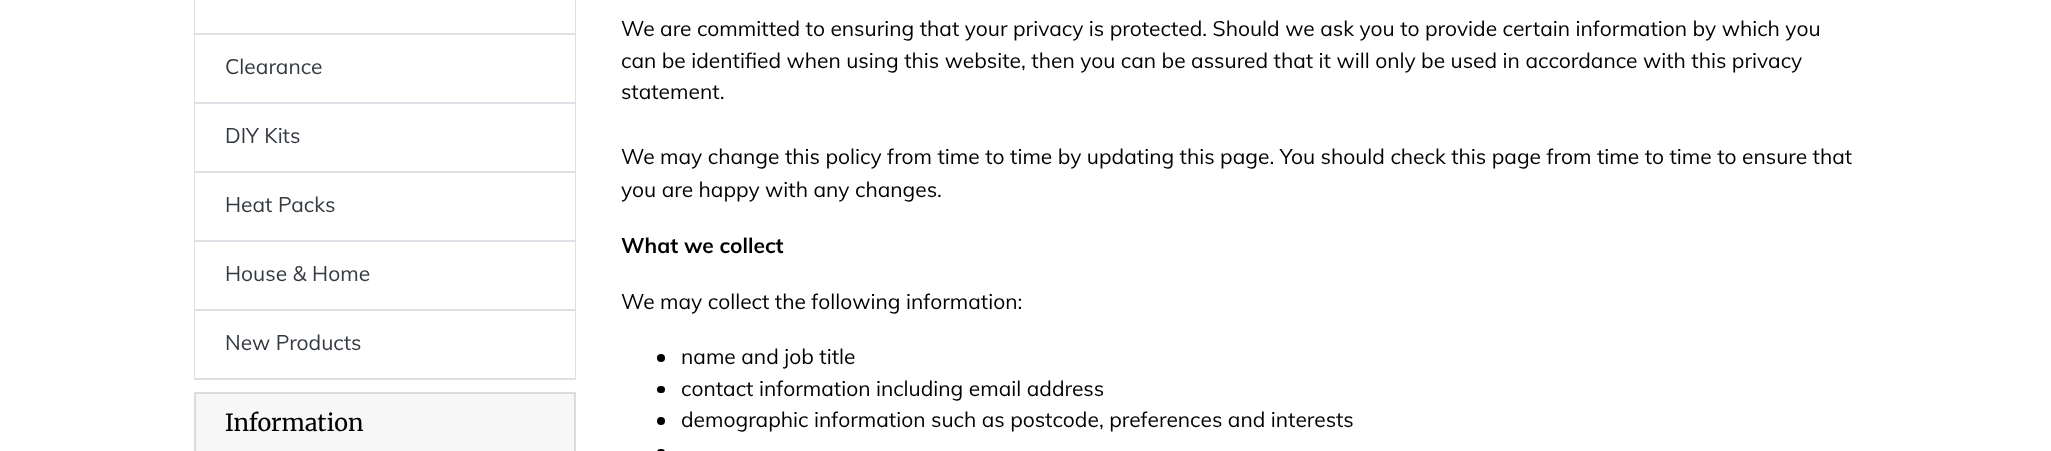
<?xml version="1.0" encoding="UTF-8"?>
<svg xmlns="http://www.w3.org/2000/svg" width="2051" height="451">
    <rect width="100%" height="100%" fill="#FFFFFF"/>
    <rect x="195" y="-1" width="380" height="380" fill="none" stroke="#DFDFDF" stroke-width="2"/>
    <rect x="195" y="33" width="380" height="2" fill="#DEE2E6"/>
    <rect x="195" y="0" width="380" height="33" fill="#FFFFFF"/>
    <rect x="195" y="102" width="380" height="2" fill="#DEE2E6"/>
    <rect x="195" y="35" width="380" height="67" fill="#FFFFFF"/>
    <text x="225" y="74" font-family="Muli" font-size="21" fill="#343A40">Clearance</text>
    <rect x="195" y="171" width="380" height="2" fill="#DEE2E6"/>
    <rect x="195" y="104" width="380" height="67" fill="#FFFFFF"/>
    <text x="225" y="143" font-family="Muli" font-size="21" fill="#343A40">DIY Kits</text>
    <rect x="195" y="240" width="380" height="2" fill="#DEE2E6"/>
    <rect x="195" y="173" width="380" height="67" fill="#FFFFFF"/>
    <text x="225" y="212" font-family="Muli" font-size="21" fill="#343A40">Heat Packs</text>
    <rect x="195" y="242" width="380" height="67" fill="#FFFFFF"/>
    <rect x="195" y="309" width="380" height="2" fill="#DFDFDF"/>
    <text x="225" y="281" font-family="Muli" font-size="21" fill="#343A40">House &amp; Home</text>
    <rect x="195" y="311" width="380" height="67" fill="#FFFFFF"/>
    <text x="225" y="350" font-family="Muli" font-size="21" fill="#343A40">New Products</text>
    <rect x="195" y="393" width="380" height="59" fill="none" stroke="#DFDFDF" stroke-width="2"/>
    <rect x="195" y="393" width="380" height="58" fill="#000000" fill-opacity="0.03"/>
    <text x="225" y="431" font-family="Merriweather" font-size="23.5" fill="#000000">Information</text>
    <text font-family="Muli" font-size="21" fill="#000000">
        <tspan x="621" y="36">We are committed to ensuring that your privacy is protected. Should we ask you to provide certain information by which you</tspan>
        <tspan x="621" y="68">can be identified when using this website, then you can be assured that it will only be used in accordance with this privacy</tspan>
        <tspan x="621" y="99">statement.</tspan>
    </text>
    <text font-family="Muli" font-size="21" fill="#000000">
        <tspan x="621" y="164">We may change this policy from time to time by updating this page. You should check this page from time to time to ensure that</tspan>
        <tspan x="621" y="197">you are happy with any changes.</tspan>
    </text>
    <text x="621" y="253" font-family="Muli" font-size="21" font-weight="700" fill="#000000">What we collect</text>
    <text x="621" y="309" font-family="Muli" font-size="21" fill="#000000">We may collect the following information:</text>
    <circle cx="661" cy="358" r="4" fill="#000000"/>
    <text x="681" y="364" font-family="Muli" font-size="21" fill="#000000">name and job title</text>
    <rect x="657" y="386" width="8" height="7" rx="3.5" fill="#000000"/>
    <text x="681" y="396" font-family="Muli" font-size="21" fill="#000000">contact information including email address</text>
    <circle cx="661" cy="421" r="4" fill="#000000"/>
    <text x="681" y="427" font-family="Muli" font-size="21" fill="#000000">demographic information such as postcode, preferences and interests</text>
    <rect x="657" y="449" width="8" height="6" rx="3.5" fill="#000000"/>
</svg>
